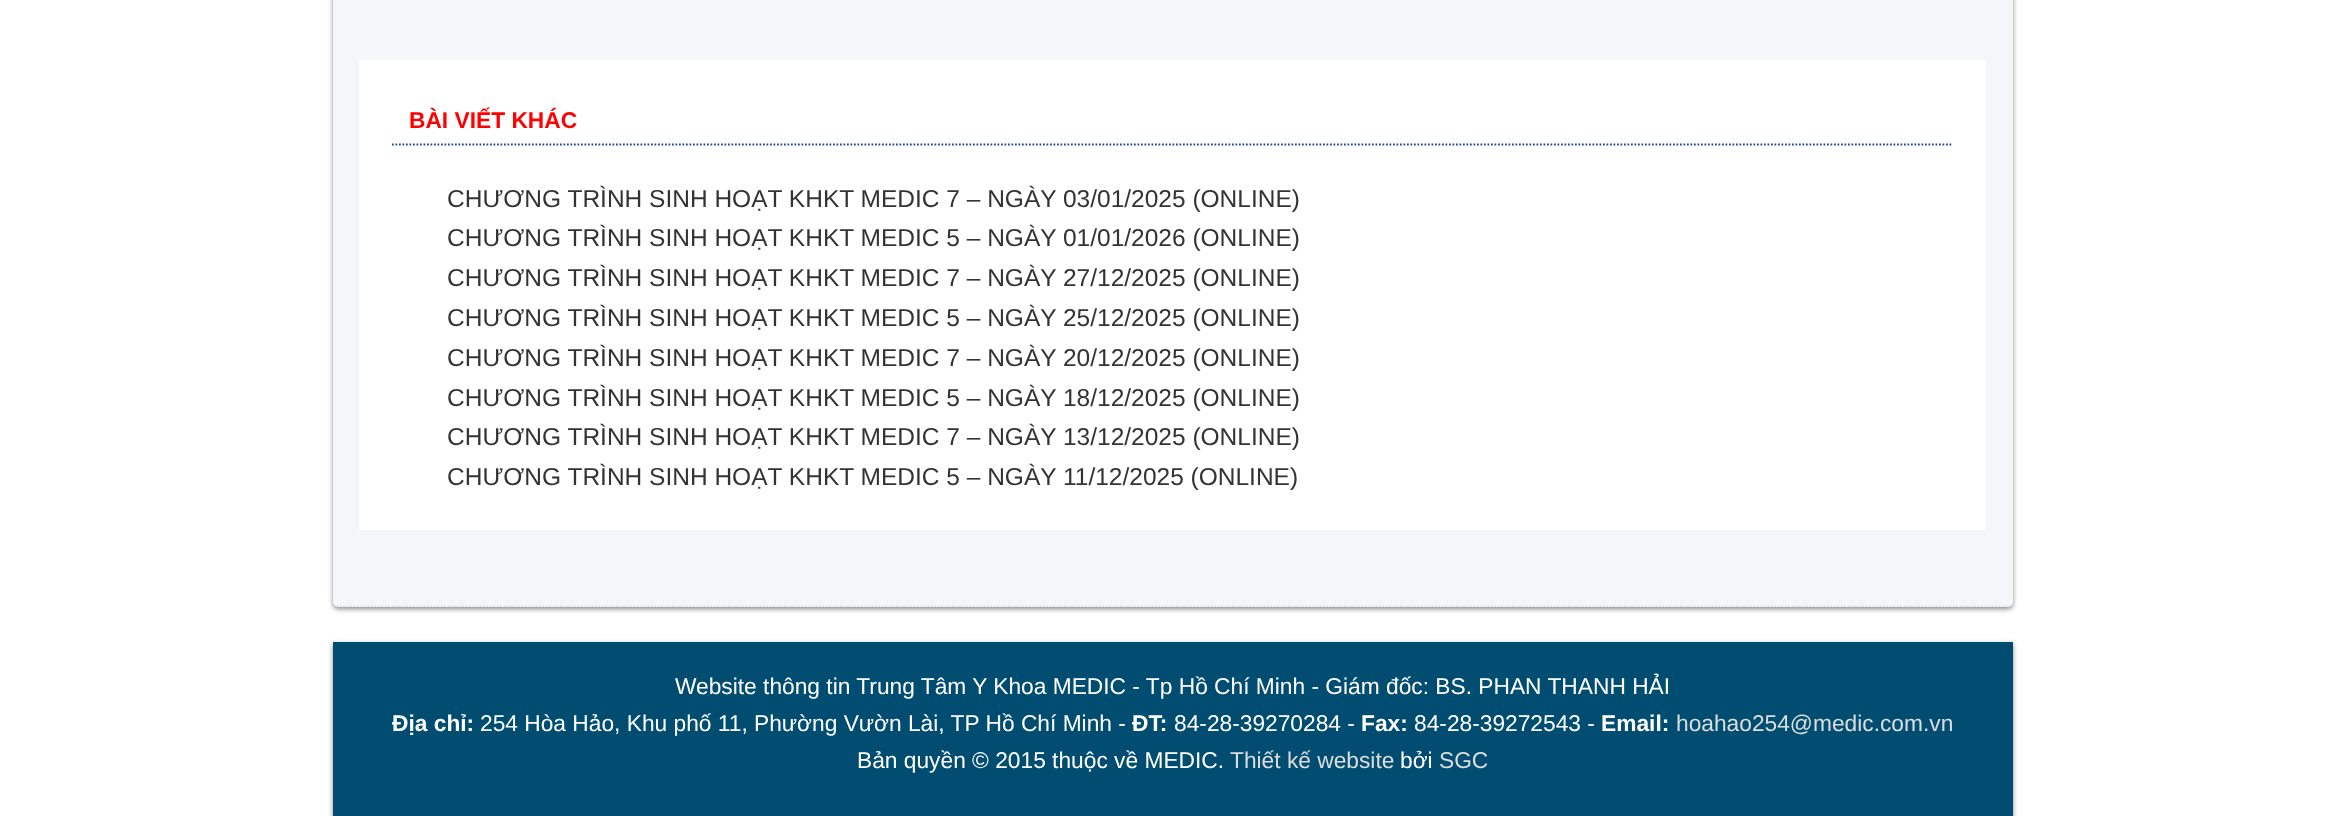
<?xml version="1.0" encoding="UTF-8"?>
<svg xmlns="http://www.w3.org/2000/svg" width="2345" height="816">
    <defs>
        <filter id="blur1" x="-50%" y="-200%" width="200%" height="500%"><feGaussianBlur stdDeviation="2.5"/></filter>
        <clipPath id="clip1"><rect x="333" y="-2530" width="1680" height="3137" rx="5"/></clipPath>
    </defs>
    <rect width="100%" height="100%" fill="#FFFFFF"/>
    <rect x="333" y="-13" width="1680" height="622" rx="5" fill="#888888" filter="url(#blur1)"/>
    <rect x="333" y="-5" width="1680" height="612" rx="5" fill="#F4F6F9"/>
    <g clip-path="url(#clip1)">
        <path d="M 332.5 606.5 H 2012.5" fill="none" stroke="#DDDDDD" stroke-width="1.8" stroke-dasharray="1.75 1.75"/>
    </g>
    <rect x="359" y="60" width="1627" height="470" fill="#FFFFFF"/>
    <path d="M 392 144.5 H 1953" fill="none" stroke="#264796" stroke-width="1.8" stroke-dasharray="1.75 1.75"/>
    <text x="409" y="128" font-family="Liberation Sans" font-size="22.75" font-weight="700" fill="#FF0000">BÀI VIẾT KHÁC</text>
    <text font-family="Liberation Sans" font-size="24.5" fill="#333333">
        <tspan x="447" y="207">CHƯƠNG TRÌNH SINH HOẠT KHKT MEDIC 7 – NGÀY 03/01/2025 (ONLINE)</tspan>
        <tspan x="447" y="246">CHƯƠNG TRÌNH SINH HOẠT KHKT MEDIC 5 – NGÀY 01/01/2026 (ONLINE)</tspan>
        <tspan x="447" y="286">CHƯƠNG TRÌNH SINH HOẠT KHKT MEDIC 7 – NGÀY 27/12/2025 (ONLINE)</tspan>
        <tspan x="447" y="326">CHƯƠNG TRÌNH SINH HOẠT KHKT MEDIC 5 – NGÀY 25/12/2025 (ONLINE)</tspan>
        <tspan x="447" y="366">CHƯƠNG TRÌNH SINH HOẠT KHKT MEDIC 7 – NGÀY 20/12/2025 (ONLINE)</tspan>
        <tspan x="447" y="406">CHƯƠNG TRÌNH SINH HOẠT KHKT MEDIC 5 – NGÀY 18/12/2025 (ONLINE)</tspan>
        <tspan x="447" y="445">CHƯƠNG TRÌNH SINH HOẠT KHKT MEDIC 7 – NGÀY 13/12/2025 (ONLINE)</tspan>
        <tspan x="447" y="485">CHƯƠNG TRÌNH SINH HOẠT KHKT MEDIC 5 – NGÀY 11/12/2025 (ONLINE)</tspan>
    </text>
    <rect x="333" y="644" width="1680" height="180" fill="#888888" filter="url(#blur1)"/>
    <rect x="333" y="642" width="1680" height="174" fill="#004D71"/>
    <text x="675" y="694" font-family="Liberation Sans" font-size="22.75" fill="#FFFFFF">Website thông tin Trung Tâm Y Khoa MEDIC - Tp Hồ Chí Minh - Giám đốc: BS. PHAN THANH HẢI</text>
    <text x="392" y="731" font-family="Liberation Sans" font-size="22.75" font-weight="700" fill="#FFFFFF">Địa chỉ:</text>
    <text x="480" y="731" font-family="Liberation Sans" font-size="22.75" fill="#FFFFFF">254 Hòa Hảo, Khu phố 11, Phường Vườn Lài, TP Hồ Chí Minh -</text>
    <text x="1132" y="731" font-family="Liberation Sans" font-size="22.75" font-weight="700" fill="#FFFFFF">ĐT:</text>
    <text x="1174" y="731" font-family="Liberation Sans" font-size="22.75" fill="#FFFFFF">84-28-39270284 -</text>
    <text x="1361" y="731" font-family="Liberation Sans" font-size="22.75" font-weight="700" fill="#FFFFFF">Fax:</text>
    <text x="1414" y="731" font-family="Liberation Sans" font-size="22.75" fill="#FFFFFF">84-28-39272543 -</text>
    <text x="1601" y="731" font-family="Liberation Sans" font-size="22.75" font-weight="700" fill="#FFFFFF">Email:</text>
    <text x="1676" y="731" font-family="Liberation Sans" font-size="22.75" fill="#DDDDDD">hoahao254@medic.com.vn</text>
    <text x="857" y="768" font-family="Liberation Sans" font-size="22.75" fill="#FFFFFF">Bản quyền © 2015 thuộc về MEDIC.</text>
    <text x="1230" y="768" font-family="Liberation Sans" font-size="22.75" fill="#DDDDDD">Thiết kế website</text>
    <text x="1400" y="768" font-family="Liberation Sans" font-size="22.75" fill="#FFFFFF">bởi</text>
    <text x="1439" y="768" font-family="Liberation Sans" font-size="22.75" fill="#DDDDDD">SGC</text>
</svg>
